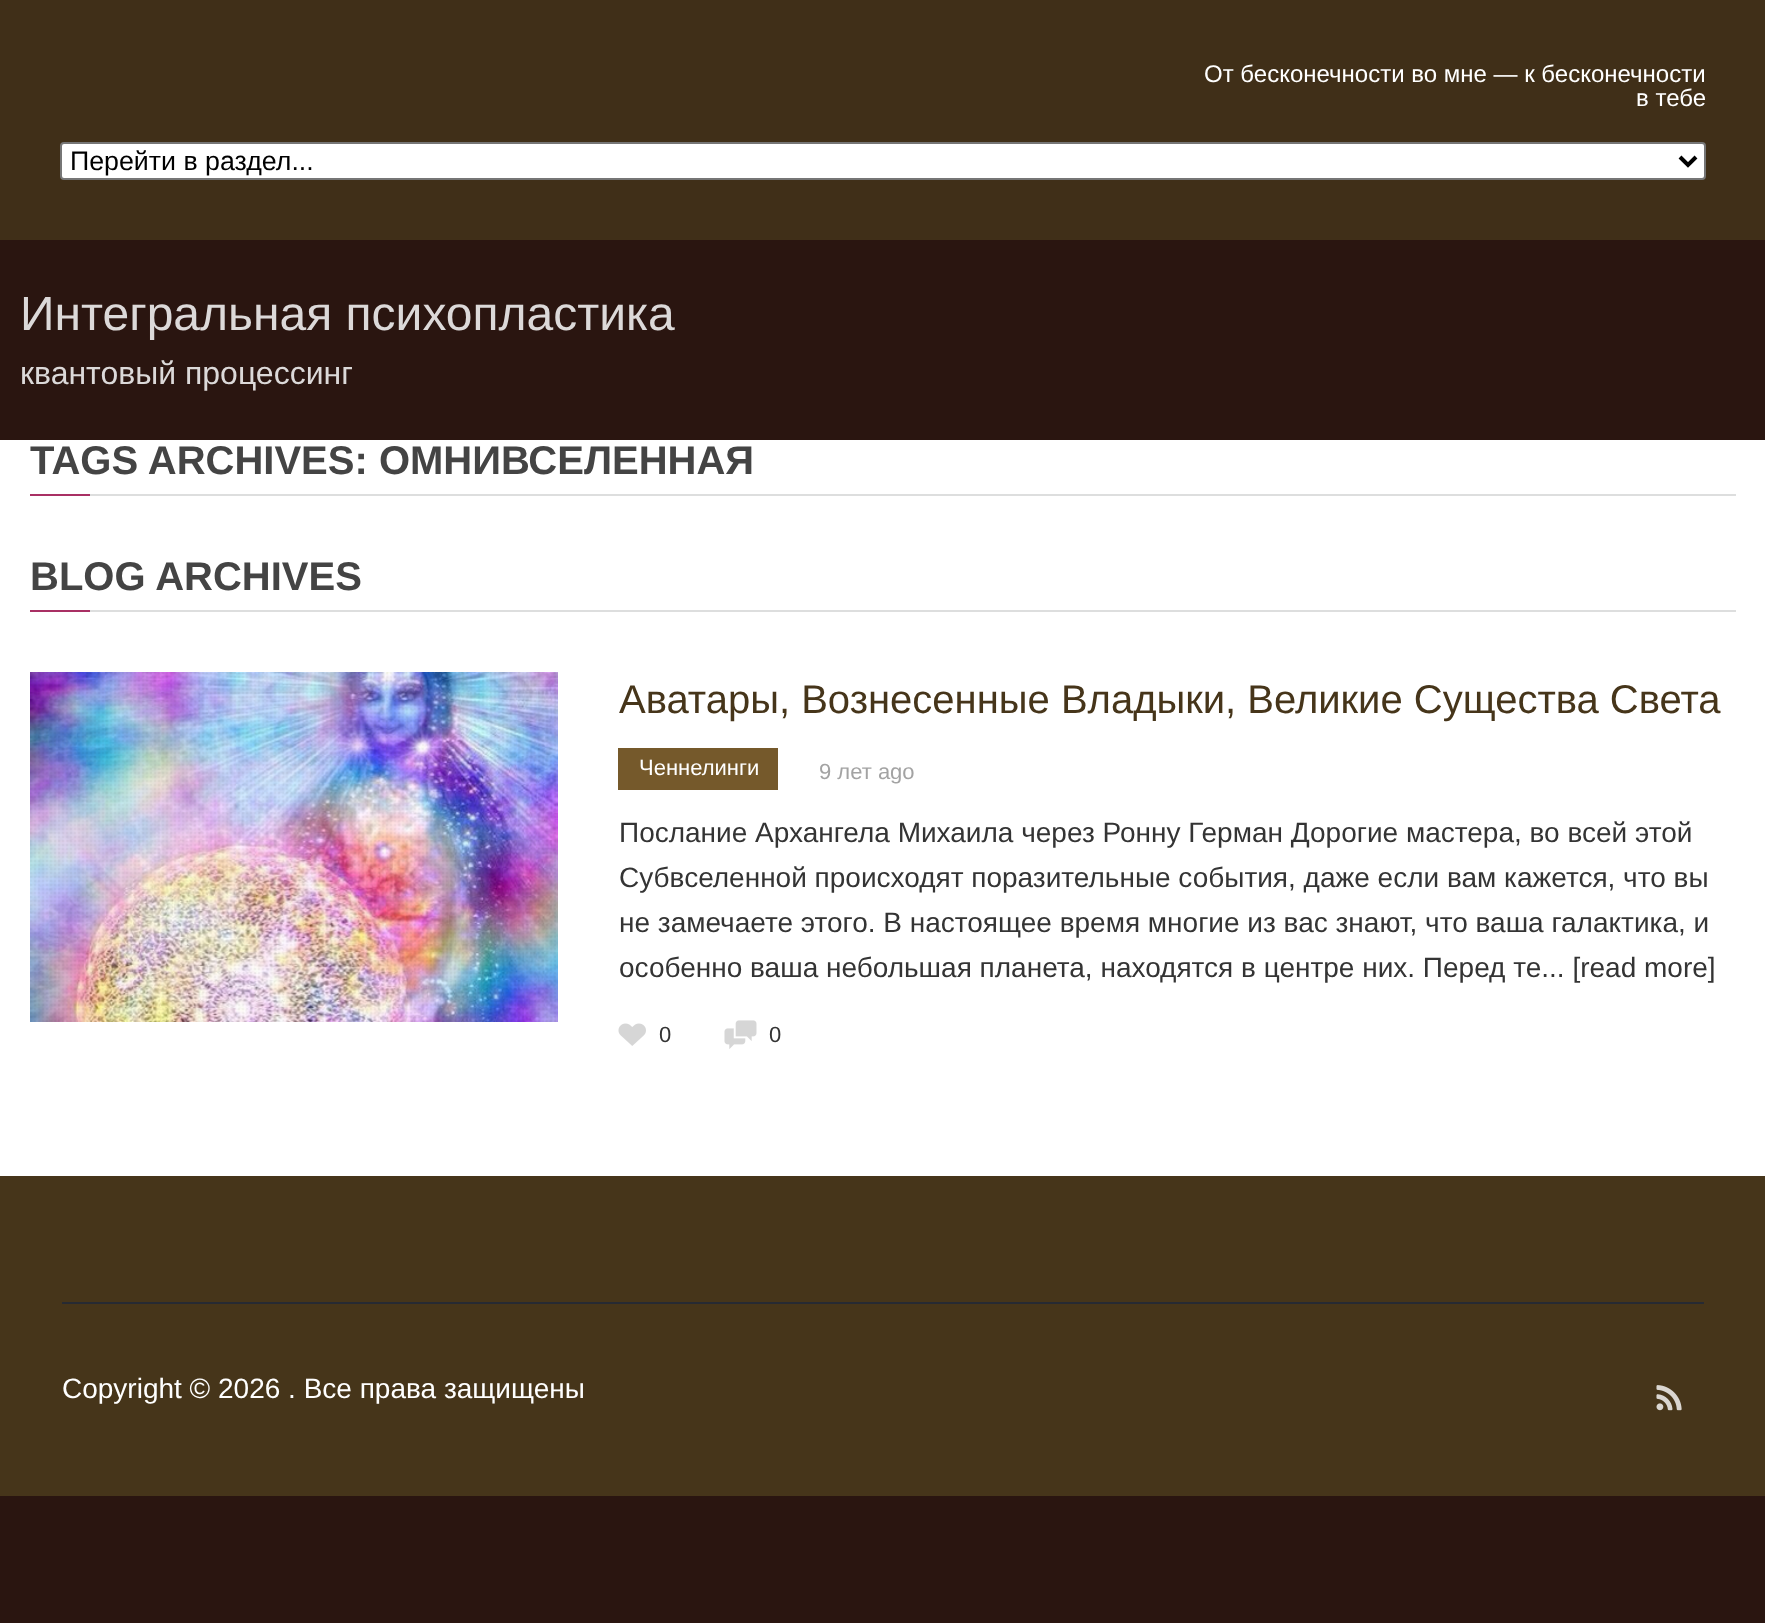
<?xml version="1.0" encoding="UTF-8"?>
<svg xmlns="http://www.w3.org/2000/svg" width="1765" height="1623">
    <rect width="100%" height="100%" fill="#2A1510"/>
    <rect x="0" y="0" width="1765" height="240" fill="#402F18"/>
    <text x="1204" y="82" font-family="Liberation Sans" font-size="24" fill="#FFFFFF">От бесконечности во мне — к бесконечности</text>
    <text x="1636" y="106" font-family="Liberation Sans" font-size="24" fill="#FFFFFF">в тебе</text>
    <rect x="61" y="143" width="1644" height="36" rx="3" fill="#FFFFFF" stroke="#767676" stroke-width="2"/>
    <path d="M 1680 157 L 1688 165 L 1696 157" fill="none" stroke="#000000" stroke-width="4"/>
    <text x="70" y="170" font-family="Liberation Sans" font-size="26.75" fill="#000000">Перейти в раздел...</text>
    <text x="20" y="330" font-family="Liberation Sans" font-size="48" fill="#DCD9D9">Интегральная психопластика</text>
    <text x="20" y="384" font-family="Liberation Sans" font-size="32" fill="#DCD9D9">квантовый процессинг</text>
    <rect x="0" y="440" width="1765" height="736" fill="#FFFFFF"/>
    <text x="30" y="474" font-family="Liberation Sans" font-size="40" font-weight="700" fill="#444444">TAGS ARCHIVES: ОМНИВСЕЛЕННАЯ</text>
    <rect x="90" y="494" width="1646" height="2" fill="#DDDEDE"/>
    <rect x="30" y="494" width="60" height="2" fill="#A93064"/>
    <text x="30" y="590" font-family="Liberation Sans" font-size="40" font-weight="700" fill="#444444">BLOG ARCHIVES</text>
    <rect x="90" y="610" width="1646" height="2" fill="#DDDEDE"/>
    <rect x="30" y="610" width="60" height="2" fill="#A93064"/>
    <image x="30" y="672" width="528" height="350" href="img_01.png"/>
    <image x="30" y="672" width="526" height="350" href="img_02.png"/>
    <text x="619" y="713" font-family="Liberation Sans" font-size="40" fill="#46351A">Аватары, Вознесенные Владыки, Великие Существа Света</text>
    <rect x="618" y="748" width="160" height="42" fill="#75592B"/>
    <text x="639" y="775" font-family="Liberation Sans" font-size="22" fill="#FFFFFF">Ченнелинги</text>
    <text x="819" y="779" font-family="Liberation Sans" font-size="22" fill="#A3A3A3">9 лет ago</text>
    <text font-family="Liberation Sans" font-size="28" fill="#343434">
        <tspan x="619" y="842">Послание Архангела Михаила через Ронну Герман Дорогие мастера, во всей этой</tspan>
        <tspan x="619" y="887">Субвселенной происходят поразительные события, даже если вам кажется, что вы</tspan>
        <tspan x="619" y="932">не замечаете этого. В настоящее время многие из вас знают, что ваша галактика, и</tspan>
        <tspan x="619" y="977">особенно ваша небольшая планета, находятся в центре них. Перед те... [read more]</tspan>
    </text>
    <image x="618" y="1023" width="28" height="23" href="img_03.png"/>
    <text x="659" y="1042" font-family="Liberation Sans" font-size="22" fill="#343434">0</text>
    <image x="724" y="1020" width="33" height="29" href="img_04.png"/>
    <text x="769" y="1042" font-family="Liberation Sans" font-size="22" fill="#343434">0</text>
    <rect x="0" y="1176" width="1765" height="320" fill="#46351A"/>
    <rect x="62" y="1302" width="1642" height="2" fill="#272A32"/>
    <text x="62" y="1398" font-family="Liberation Sans" font-size="28" fill="#FFFFFF">Copyright © 2026 . Все права защищены</text>
    <image x="1656" y="1385" width="26" height="26" href="img_05.png"/>
</svg>
